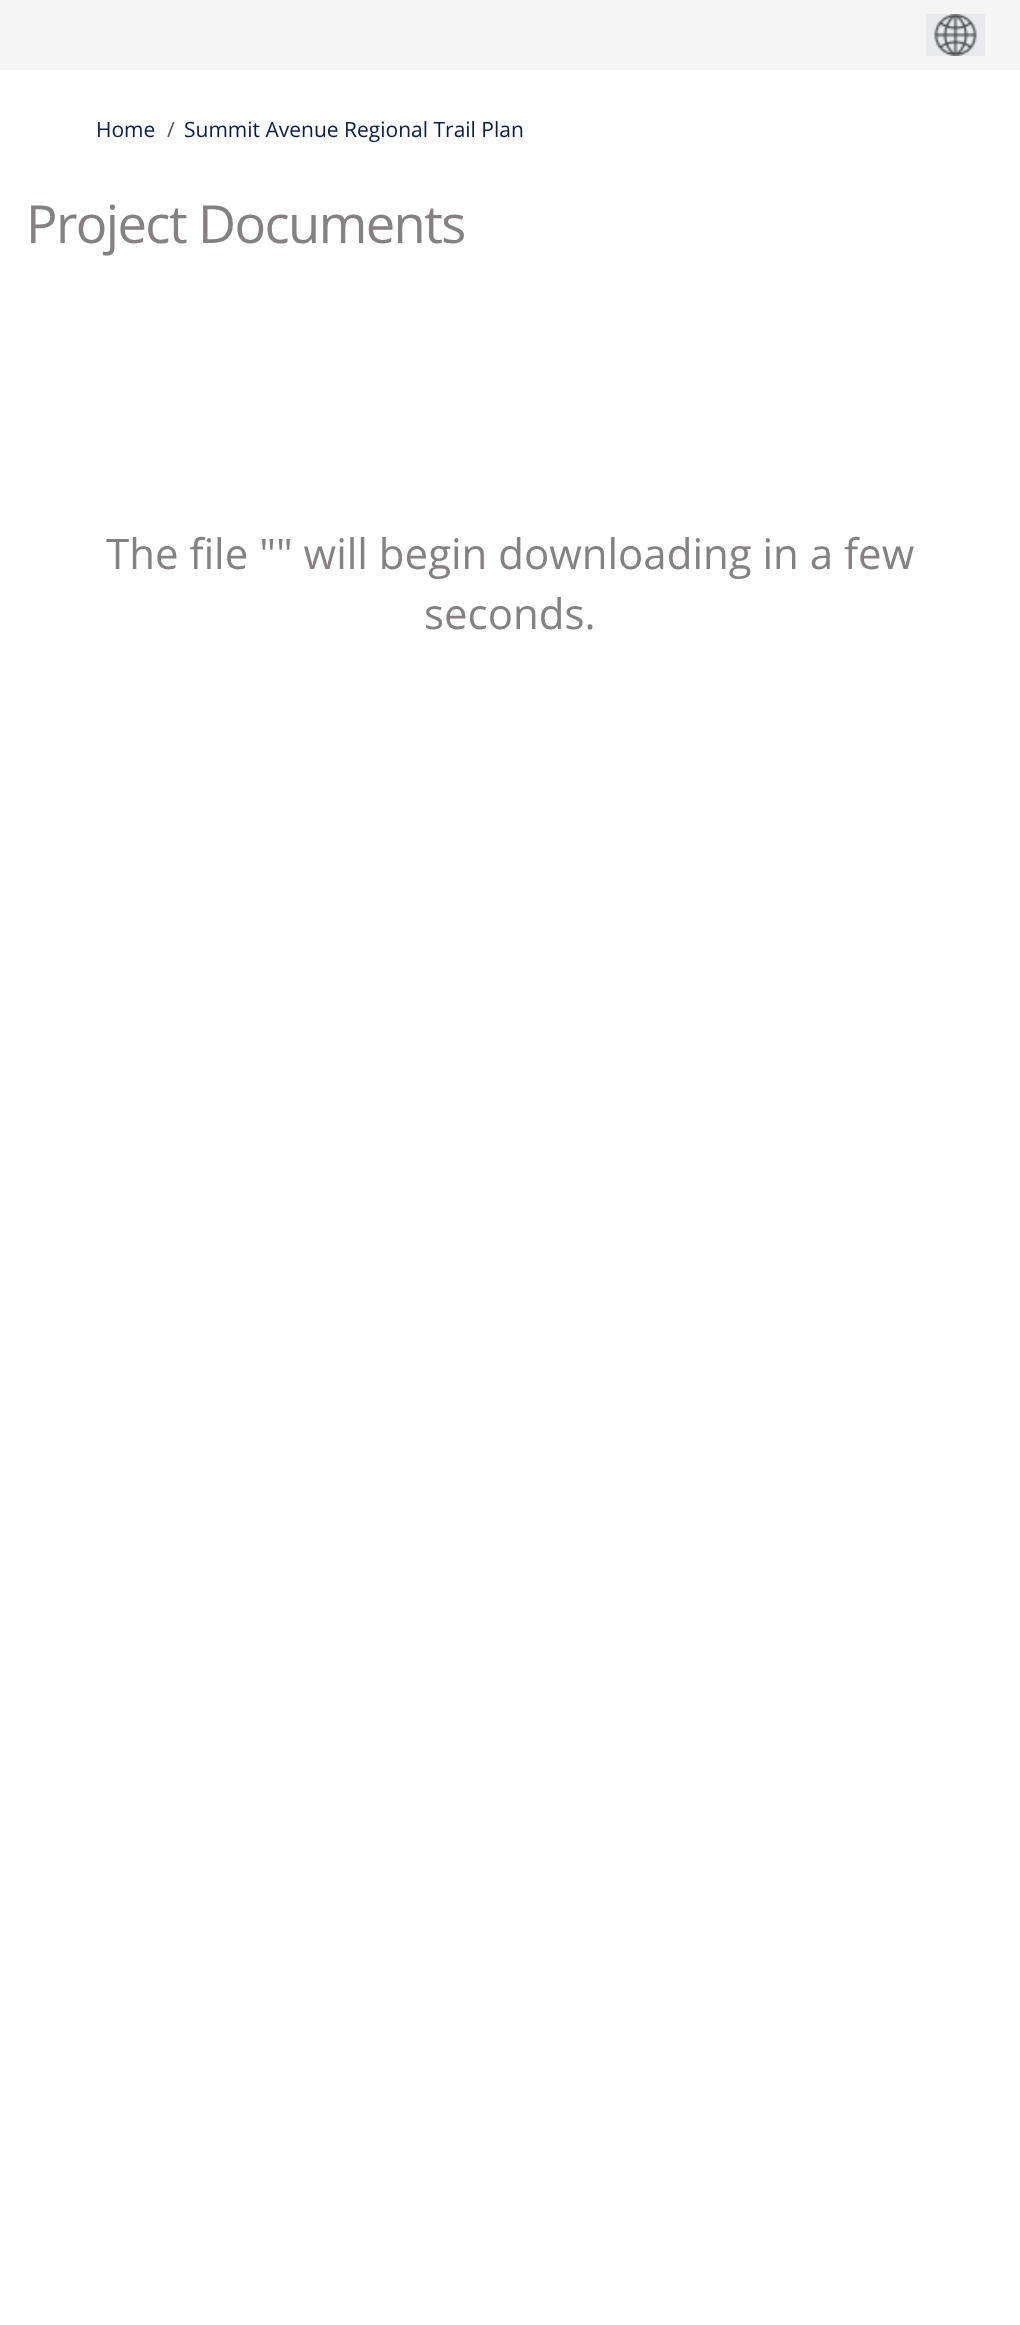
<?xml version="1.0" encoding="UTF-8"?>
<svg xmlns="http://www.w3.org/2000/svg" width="1020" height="2325">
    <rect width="100%" height="100%" fill="#FFFFFF"/>
    <rect x="0" y="0" width="1020" height="70" fill="#F5F5F5"/>
    <rect x="926" y="14" width="59" height="42" fill="#E8EAED"/>
    <image x="934" y="14" width="43" height="42" href="img_01.png"/>
    <text x="96" y="137" font-family="Open Sans" font-size="21" fill="#071D49">Home</text>
    <text x="167" y="137" font-family="Open Sans" font-size="21" fill="#555555">/</text>
    <text x="184" y="137" font-family="Open Sans" font-size="21" fill="#071D49">Summit Avenue Regional Trail Plan</text>
    <text x="26" y="243" font-family="Open Sans" font-size="52.5" letter-spacing="-1.6" fill="#858181">Project Documents</text>
    <text x="106" y="569" font-family="Open Sans" font-size="42" fill="#858181">The file "" will begin downloading in a few</text>
    <text x="424" y="629" font-family="Open Sans" font-size="42" fill="#858181">seconds.</text>
</svg>
